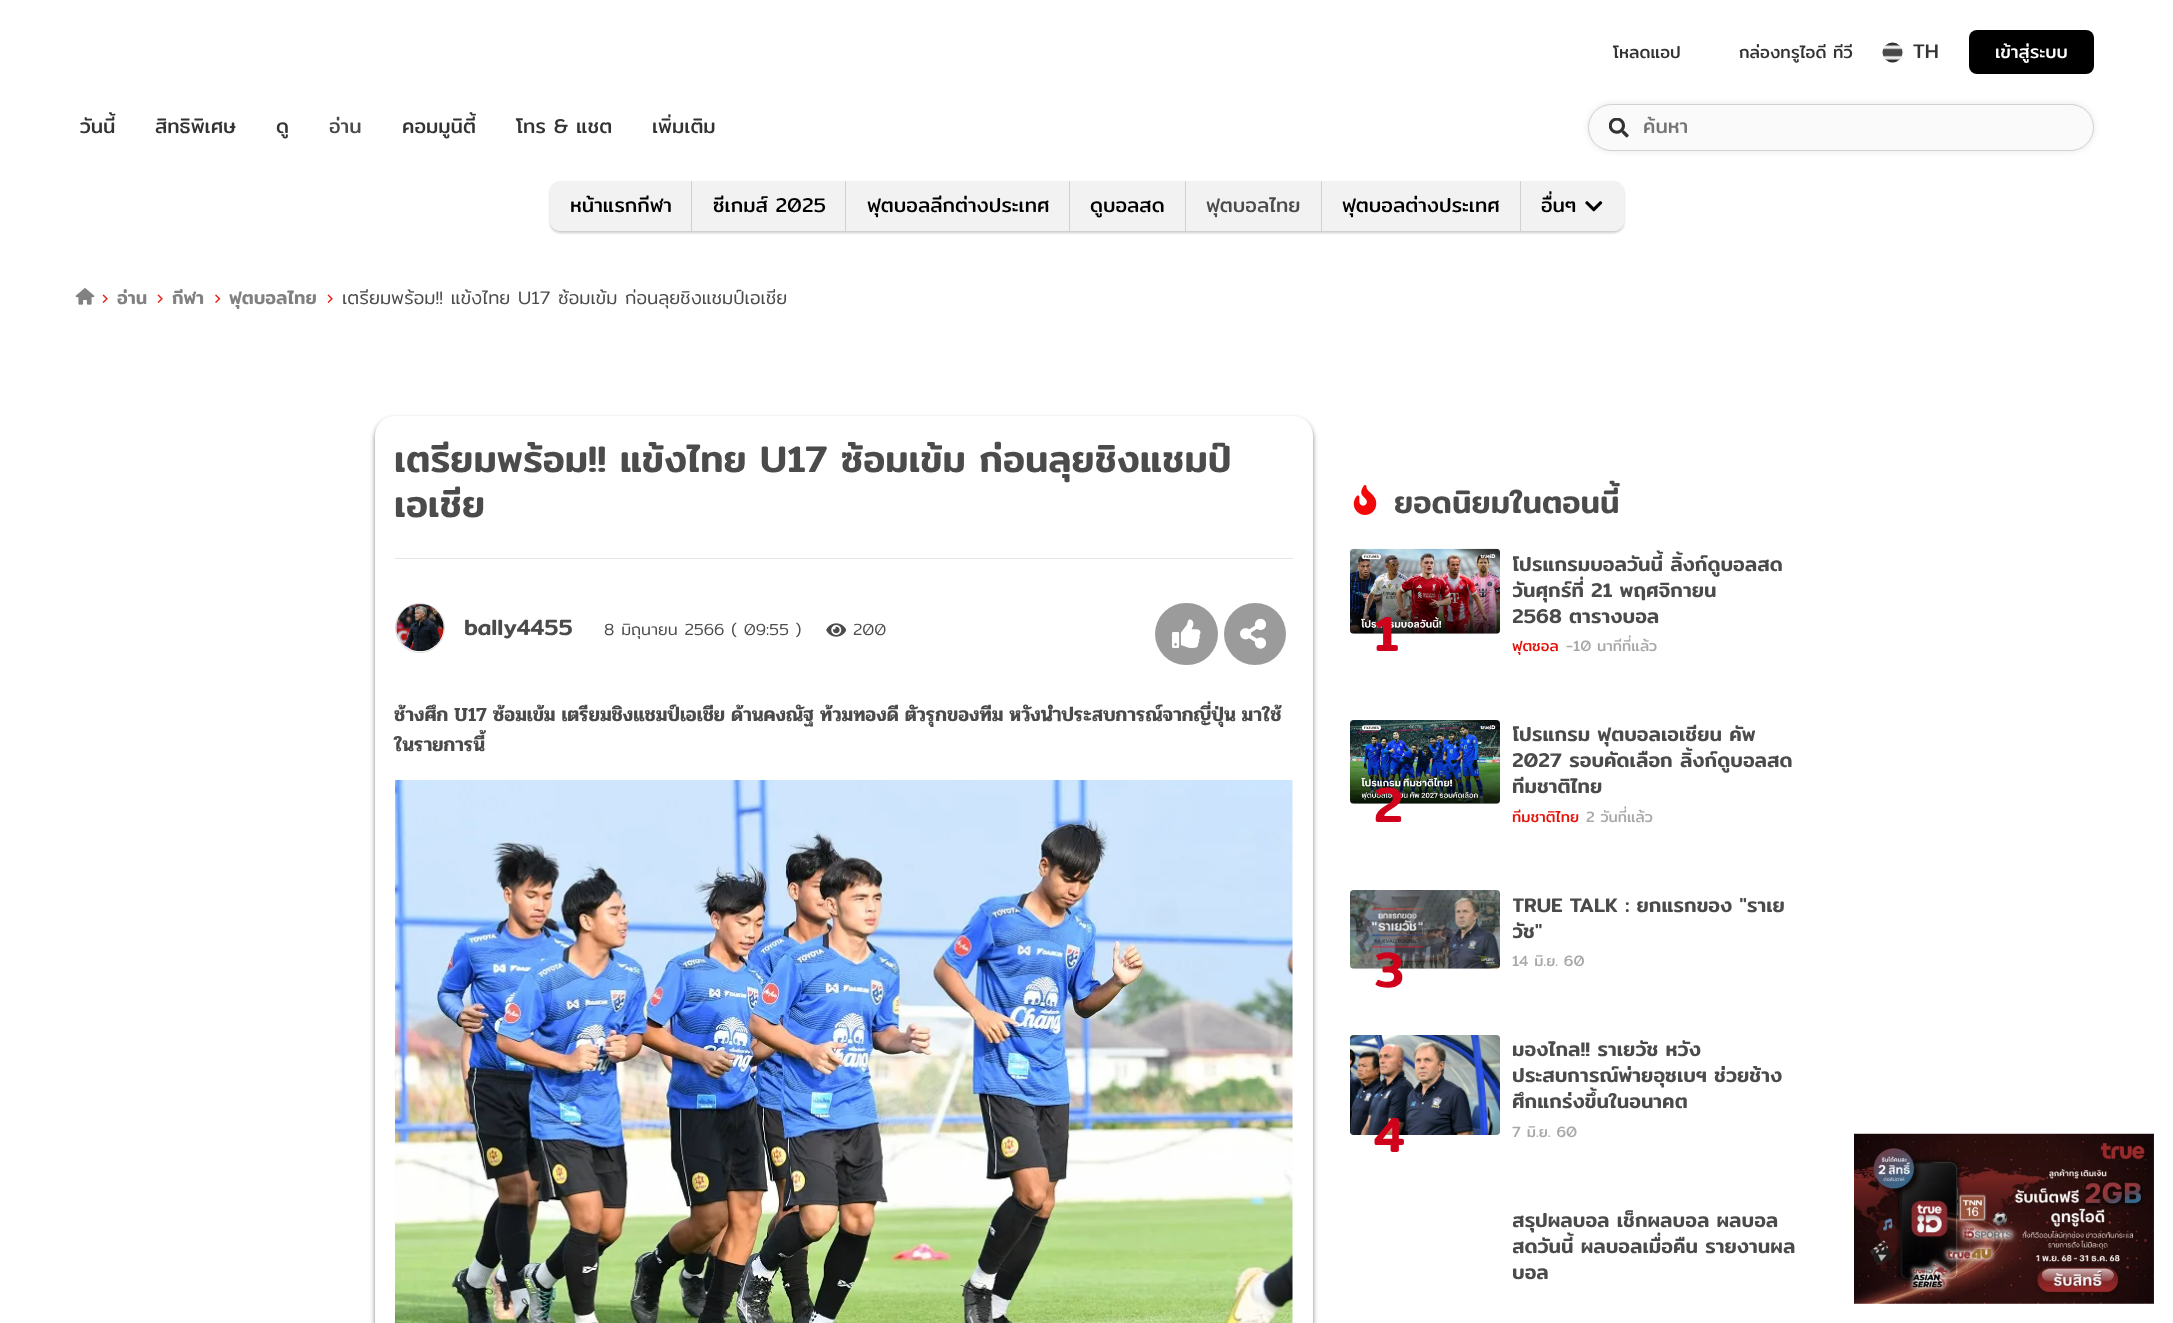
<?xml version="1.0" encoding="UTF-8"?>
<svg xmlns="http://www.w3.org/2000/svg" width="2173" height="1323">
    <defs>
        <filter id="blur1" x="-50%" y="-200%" width="200%" height="500%"><feGaussianBlur stdDeviation="3"/></filter>
        <clipPath id="clip1"><rect x="1643" y="111" width="386" height="32"/></clipPath>
        <filter id="blur2" x="-50%" y="-200%" width="200%" height="500%"><feGaussianBlur stdDeviation="1"/></filter>
        <filter id="blur3" x="-50%" y="-200%" width="200%" height="500%"><feGaussianBlur stdDeviation="2.5"/></filter>
        <clipPath id="clip2"><rect x="1513" y="549" width="287" height="81"/></clipPath>
        <clipPath id="clip3"><rect x="1513" y="720" width="287" height="80"/></clipPath>
        <clipPath id="clip4"><rect x="1513" y="890" width="287" height="55"/></clipPath>
        <clipPath id="clip5"><rect x="1513" y="1035" width="287" height="80"/></clipPath>
        <clipPath id="clip6"><rect x="1513" y="1205" width="287" height="81"/></clipPath>
    </defs>
    <rect width="100%" height="100%" fill="#FFFFFF"/>
    <text x="1613" y="58" font-family="Mitr" font-size="17" fill="#333333">โหลดแอป</text>
    <text x="1739" y="58" font-family="Mitr" font-size="17" fill="#333333">กล่องทรูไอดี ทีวี</text>
    <circle cx="1893" cy="53" r="10" fill="#EFEFEF"/>
    <image x="1882" y="42" width="21" height="21" href="img_01.png"/>
    <text x="1913" y="58" font-family="Mitr" font-size="20" fill="#333333">TH</text>
    <rect x="1969" y="30" width="125" height="44" rx="8" fill="#000000"/>
    <text x="1995" y="58" font-family="Mitr" font-size="18" fill="#FFFFFF">เข้าสู่ระบบ</text>
    <text x="80" y="133" font-family="Mitr" font-size="20" fill="#333333">วันนี้</text>
    <text x="155" y="133" font-family="Mitr" font-size="20" fill="#333333">สิทธิพิเศษ</text>
    <text x="276" y="133" font-family="Mitr" font-size="20" fill="#333333">ดู</text>
    <text x="329" y="133" font-family="Mitr" font-size="20" fill="#4B4B4B">อ่าน</text>
    <text x="402" y="133" font-family="Mitr" font-size="20" fill="#333333">คอมมูนิตี้</text>
    <text x="516" y="133" font-family="Mitr" font-size="20" fill="#333333">โทร &amp; แชต</text>
    <text x="652" y="133" font-family="Mitr" font-size="20" fill="#333333">เพิ่มเติม</text>
    <rect x="1588" y="104" width="506" height="47" rx="23.5" fill="#000000" fill-opacity="0.1" filter="url(#blur1)"/>
    <rect x="1588.5" y="104.5" width="505" height="46" rx="23" fill="#FAFAFA" stroke="#D1D1D1"/>
    <image x="1609" y="118" width="20" height="20" href="img_02.png"/>
    <g clip-path="url(#clip1)">
        <text x="1643" y="133" font-family="Mitr" font-size="20" fill="#757575">ค้นหา</text>
    </g>
    <rect x="550" y="183" width="1074" height="50" rx="10" fill="#000000" fill-opacity="0.2" filter="url(#blur2)"/>
    <path d="M 560 181 H 691 V 231 H 560 C 554.5 231 550 226.5 550 221 V 191 C 550 185.5 554.5 181 560 181 Z" fill="#F2F2F2"/>
    <text x="570" y="212" font-family="Mitr" font-size="20" fill="#000000">หน้าแรกกีฬา</text>
    <rect x="692" y="181" width="153" height="50" fill="#F2F2F2"/>
    <rect x="691" y="181" width="1" height="50" fill="#D1D1D1"/>
    <text x="713" y="212" font-family="Mitr" font-size="20" fill="#000000">ซีเกมส์ 2025</text>
    <rect x="846" y="181" width="223" height="50" fill="#F2F2F2"/>
    <rect x="845" y="181" width="1" height="50" fill="#D1D1D1"/>
    <text x="867" y="212" font-family="Mitr" font-size="20" fill="#000000">ฟุตบอลลีกต่างประเทศ</text>
    <rect x="1070" y="181" width="115" height="50" fill="#F2F2F2"/>
    <rect x="1069" y="181" width="1" height="50" fill="#D1D1D1"/>
    <text x="1090" y="212" font-family="Mitr" font-size="20" fill="#000000">ดูบอลสด</text>
    <rect x="1186" y="181" width="135" height="50" fill="#F2F2F2"/>
    <rect x="1185" y="181" width="1" height="50" fill="#D1D1D1"/>
    <text x="1206" y="212" font-family="Mitr" font-size="20" fill="#4B4B4B">ฟุตบอลไทย</text>
    <rect x="1322" y="181" width="198" height="50" fill="#F2F2F2"/>
    <rect x="1321" y="181" width="1" height="50" fill="#D1D1D1"/>
    <text x="1342" y="212" font-family="Mitr" font-size="20" fill="#000000">ฟุตบอลต่างประเทศ</text>
    <path d="M 1520 181 H 1614 C 1619.5 181 1624 185.5 1624 191 V 221 C 1624 226.5 1619.5 231 1614 231 H 1520 Z" fill="#F2F2F2"/>
    <rect x="1520" y="181" width="1" height="50" fill="#D1D1D1"/>
    <text x="1541" y="212" font-family="Mitr" font-size="20" fill="#000000">อื่นๆ</text>
    <image x="1585" y="201" width="18" height="11" href="img_03.png"/>
    <image x="75" y="288" width="20" height="17" href="img_04.png"/>
    <image x="102" y="294" width="6" height="9" href="img_05.png"/>
    <text x="117" y="304" font-family="Mitr" font-size="18.4" font-weight="500" fill="#818181">อ่าน</text>
    <image x="157" y="294" width="6" height="9" href="img_05.png"/>
    <text x="172" y="304" font-family="Mitr" font-size="18.4" font-weight="500" fill="#818181">กีฬา</text>
    <image x="215" y="294" width="6" height="9" href="img_06.png"/>
    <text x="229" y="304" font-family="Mitr" font-size="18.4" font-weight="500" fill="#818181">ฟุตบอลไทย</text>
    <image x="327" y="294" width="6" height="9" href="img_05.png"/>
    <text x="342" y="304" font-family="Mitr" font-size="18.4" font-weight="300" fill="#4B4B4B">เตรียมพร้อม!! แข้งไทย U17 ซ้อมเข้ม ก่อนลุยชิงแชมป์เอเชีย</text>
    <rect x="375" y="419" width="938" height="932" rx="20" fill="#000000" fill-opacity="0.5" filter="url(#blur3)"/>
    <rect x="375" y="416" width="938" height="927" rx="20" fill="#FFFFFF"/>
    <rect x="395" y="558" width="898" height="1" fill="#E3E4E8"/>
    <text font-family="Mitr" font-size="37.5" font-weight="500" fill="#4B4B4B">
        <tspan x="394" y="472">เตรียมพร้อม!! แข้งไทย U17 ซ้อมเข้ม ก่อนลุยชิงแชมป์</tspan>
        <tspan x="394" y="517">เอเชีย</tspan>
    </text>
    <circle cx="420" cy="628" r="24.5" fill="none" stroke="#DADADA"/>
    <image x="396" y="604" width="48" height="48" href="img_07.png"/>
    <text x="464" y="635" font-family="Mitr" font-size="22.5" font-weight="500" fill="#4B4B4B">bally4455</text>
    <text x="604" y="635" font-family="Mitr" font-size="16.25" font-weight="300" fill="#4B4B4B">8 มิถุนายน 2566 ( 09:55 )</text>
    <image x="826" y="623" width="20" height="14" href="img_08.png"/>
    <text x="853" y="635" font-family="Mitr" font-size="16.25" font-weight="300" fill="#4B4B4B">200</text>
    <rect x="1155" y="603" width="63" height="62" rx="31" fill="#9B9B9B"/>
    <image x="1172" y="619" width="29" height="29" href="img_09.png"/>
    <circle cx="1255" cy="634" r="31" fill="#9B9B9B"/>
    <image x="1240" y="618" width="26" height="31" href="img_10.png"/>
    <text font-family="Pridi" font-size="20" font-weight="600" fill="#4B4B4B">
        <tspan x="394" y="721">ช้างศึก U17 ซ้อมเข้ม เตรียมชิงแชมป์เอเชีย ด้านคงณัฐ ท้วมทองดี ตัวรุกของทีม หวังนำประสบการณ์จากญี่ปุ่น มาใช้</tspan>
        <tspan x="394" y="751">ในรายการนี้</tspan>
    </text>
    <image x="395" y="780" width="898" height="543" href="img_11.png"/>
    <image x="1353" y="485" width="24" height="30" href="img_12.png"/>
    <text x="1394" y="513" font-family="Mitr" font-size="31.25" font-weight="500" fill="#4B4B4B">ยอดนิยมในตอนนี้</text>
    <image x="1350" y="548" width="150" height="86" href="img_13.png"/>
    <text x="1374" y="651" font-family="Mitr" font-size="50" font-weight="500" fill="#D0021B">1</text>
    <g clip-path="url(#clip2)">
        <text font-family="Mitr" font-size="20" font-weight="500" fill="#4B4B4B">
            <tspan x="1512" y="571">โปรแกรมบอลวันนี้ ลิ้งก์ดูบอลสด</tspan>
            <tspan x="1512" y="597">วันศุกร์ที่ 21 พฤศจิกายน</tspan>
            <tspan x="1512" y="623">2568 ตารางบอล</tspan>
        </text>
    </g>
    <text x="1512" y="651" font-family="Mitr" font-size="15" fill="#E71007">ฟุตซอล</text>
    <text x="1566" y="651" font-family="Mitr" font-size="15" fill="#A9A9A9">-10 นาทีที่แล้ว</text>
    <image x="1350" y="720" width="150" height="84" href="img_14.png"/>
    <text x="1374" y="822" font-family="Mitr" font-size="50" font-weight="500" fill="#D0021B">2</text>
    <g clip-path="url(#clip3)">
        <text font-family="Mitr" font-size="20" font-weight="500" fill="#4B4B4B">
            <tspan x="1512" y="741">โปรแกรม ฟุตบอลเอเชียน คัพ</tspan>
            <tspan x="1512" y="767">2027 รอบคัดเลือก ลิ้งก์ดูบอลสด</tspan>
            <tspan x="1512" y="793">ทีมชาติไทย</tspan>
        </text>
    </g>
    <text x="1512" y="822" font-family="Mitr" font-size="15" fill="#E71007">ทีมชาติไทย</text>
    <text x="1586" y="822" font-family="Mitr" font-size="15" fill="#A9A9A9">2 วันที่แล้ว</text>
    <image x="1350" y="890" width="150" height="79" href="img_15.png"/>
    <text x="1374" y="987" font-family="Mitr" font-size="50" font-weight="500" fill="#D0021B">3</text>
    <g clip-path="url(#clip4)">
        <text font-family="Mitr" font-size="20" font-weight="500" fill="#4B4B4B">
            <tspan x="1512" y="912">TRUE TALK : ยกแรกของ "ราเย</tspan>
            <tspan x="1512" y="938">วัช"</tspan>
        </text>
    </g>
    <text x="1512" y="966" font-family="Mitr" font-size="15" fill="#A9A9A9">14 มิ.ย. 60</text>
    <image x="1350" y="1035" width="150" height="100" href="img_16.png"/>
    <text x="1374" y="1152" font-family="Mitr" font-size="50" font-weight="500" fill="#D0021B">4</text>
    <g clip-path="url(#clip5)">
        <text font-family="Mitr" font-size="20" font-weight="500" fill="#4B4B4B">
            <tspan x="1512" y="1056">มองไกล!! ราเยวัช หวัง</tspan>
            <tspan x="1512" y="1082">ประสบการณ์พ่ายอุซเบฯ ช่วยช้าง</tspan>
            <tspan x="1512" y="1108">ศึกแกร่งขึ้นในอนาคต</tspan>
        </text>
    </g>
    <text x="1512" y="1137" font-family="Mitr" font-size="15" fill="#A9A9A9">7 มิ.ย. 60</text>
    <g clip-path="url(#clip6)">
        <text font-family="Mitr" font-size="20" font-weight="500" fill="#4B4B4B">
            <tspan x="1512" y="1227">สรุปผลบอล เช็กผลบอล ผลบอล</tspan>
            <tspan x="1512" y="1253">สดวันนี้ ผลบอลเมื่อคืน รายงานผล</tspan>
            <tspan x="1512" y="1279">บอล</tspan>
        </text>
    </g>
    <image x="1854" y="1133" width="300" height="171" href="img_17.png"/>
</svg>
